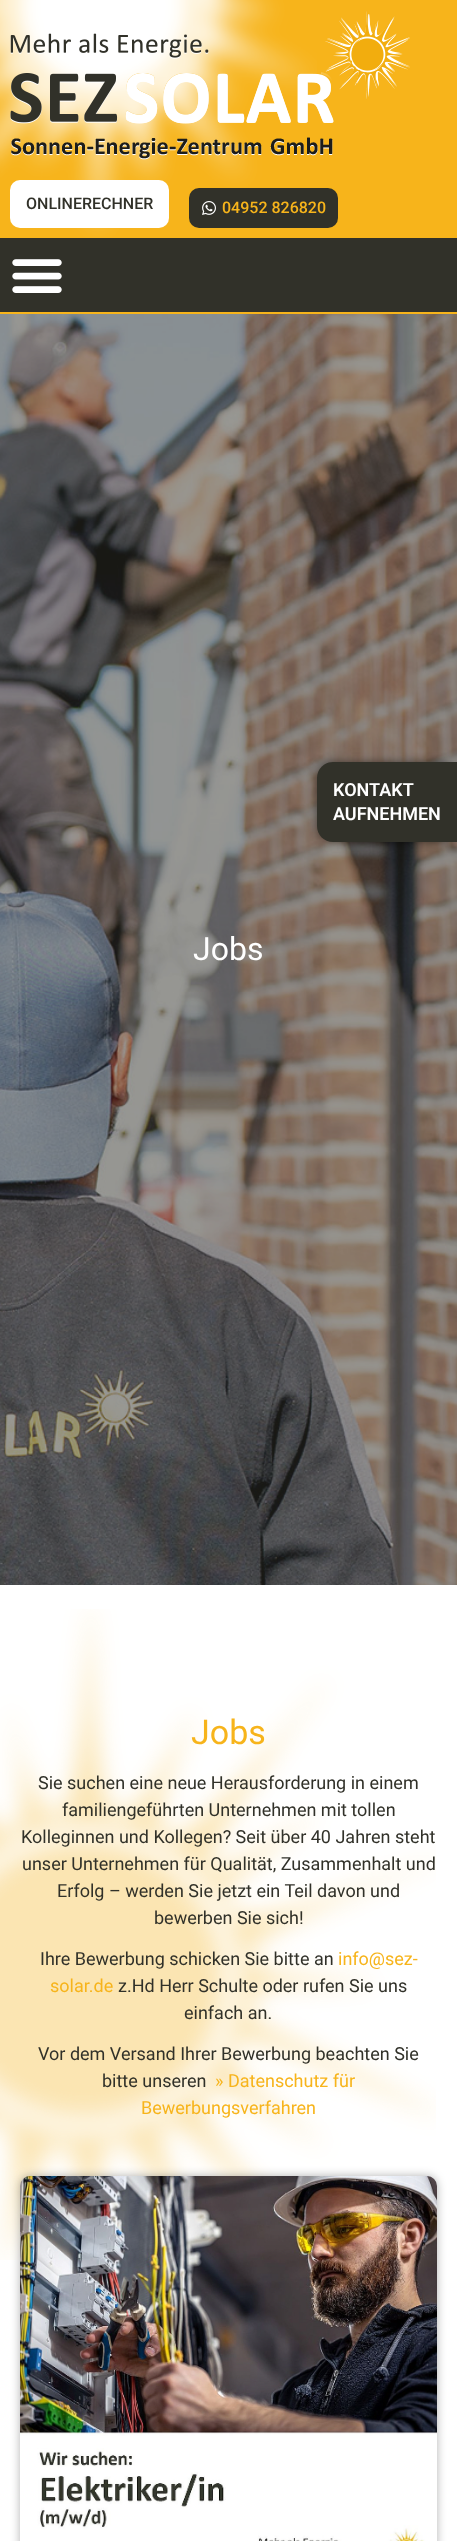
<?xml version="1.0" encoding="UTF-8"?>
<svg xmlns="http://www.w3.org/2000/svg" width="457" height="2541">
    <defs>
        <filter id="blur1" x="-50%" y="-200%" width="200%" height="500%"><feGaussianBlur stdDeviation="5"/></filter>
    </defs>
    <rect width="100%" height="100%" fill="#FFFFFF"/>
    <rect x="0" y="0" width="457" height="238" fill="#F7B41B"/>
    <image x="0" y="0" width="317" height="238" href="img_01.png"/>
    <image x="10" y="11" width="400" height="149" href="img_02.png"/>
    <rect x="10" y="180" width="159" height="48" rx="10" fill="#FFFFFF"/>
    <text x="26" y="209" font-family="Roboto" font-size="16" font-weight="500" fill="#313129">ONLINERECHNER</text>
    <rect x="189" y="188" width="149" height="40" rx="10" fill="#313129"/>
    <image x="202" y="201" width="14" height="14" href="img_03.png"/>
    <text x="222" y="213" font-family="Roboto" font-size="16" font-weight="500" fill="#F7B41B">04952 826820</text>
    <rect x="0" y="238" width="457" height="74" fill="#313129"/>
    <rect x="0" y="312" width="457" height="2" fill="#F7B41B"/>
    <image x="12" y="259" width="50" height="34" href="img_04.png"/>
    <image x="0" y="314" width="457" height="1271" href="img_05.png"/>
    <rect x="317" y="762" width="140" height="80" rx="16" fill="#000000" fill-opacity="0.5" filter="url(#blur1)"/>
    <path d="M 333 762 H 457 V 842 H 333 C 324 842 317 835 317 826 V 778 C 317 769 324 762 333 762 Z" fill="#313129"/>
    <text font-family="Roboto" font-size="18" font-weight="600" fill="#FFFFFF">
        <tspan x="333" y="796">KONTAKT</tspan>
        <tspan x="333" y="820">AUFNEHMEN</tspan>
    </text>
    <text x="193" y="960" font-family="Roboto" font-size="32" fill="#FFFFFF">Jobs</text>
    <image x="0" y="1609" width="436" height="651" href="img_06.png"/>
    <text x="191" y="1744" font-family="Roboto" font-size="34" fill="#F7B41B">Jobs</text>
    <text x="38" y="1789" font-family="Roboto" font-size="18" fill="#313129">Sie suchen eine neue Herausforderung in einem</text>
    <text x="62" y="1816" font-family="Roboto" font-size="18" fill="#313129">familiengeführten Unternehmen mit tollen</text>
    <text x="21" y="1843" font-family="Roboto" font-size="18" fill="#313129">Kolleginnen und Kollegen? Seit über 40 Jahren steht</text>
    <text x="22" y="1870" font-family="Roboto" font-size="18" fill="#313129">unser Unternehmen für Qualität, Zusammenhalt und</text>
    <text x="57" y="1897" font-family="Roboto" font-size="18" fill="#313129">Erfolg – werden Sie jetzt ein Teil davon und</text>
    <text x="154" y="1924" font-family="Roboto" font-size="18" fill="#313129">bewerben Sie sich!</text>
    <text x="40" y="1965" font-family="Roboto" font-size="18" fill="#313129">Ihre Bewerbung schicken Sie bitte an</text>
    <text x="338" y="1965" font-family="Roboto" font-size="18" fill="#F7B41B">info@sez-</text>
    <text x="50" y="1992" font-family="Roboto" font-size="18" fill="#F7B41B">solar.de</text>
    <text x="118" y="1992" font-family="Roboto" font-size="18" fill="#313129">z.Hd Herr Schulte oder rufen Sie uns</text>
    <text x="184" y="2019" font-family="Roboto" font-size="18" fill="#313129">einfach an.</text>
    <text x="38" y="2060" font-family="Roboto" font-size="18" fill="#313129">Vor dem Versand Ihrer Bewerbung beachten Sie</text>
    <text x="102" y="2087" font-family="Roboto" font-size="18" fill="#313129">bitte unseren</text>
    <text x="215" y="2087" font-family="Roboto" font-size="18" fill="#F7B41B">» Datenschutz für</text>
    <text x="141" y="2114" font-family="Roboto" font-size="18" fill="#F7B41B">Bewerbungsverfahren</text>
    <rect x="20" y="2176" width="417" height="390" rx="10" fill="#000000" fill-opacity="0.3" filter="url(#blur1)"/>
    <image x="20" y="2176" width="417" height="365" href="img_07.png"/>
</svg>
